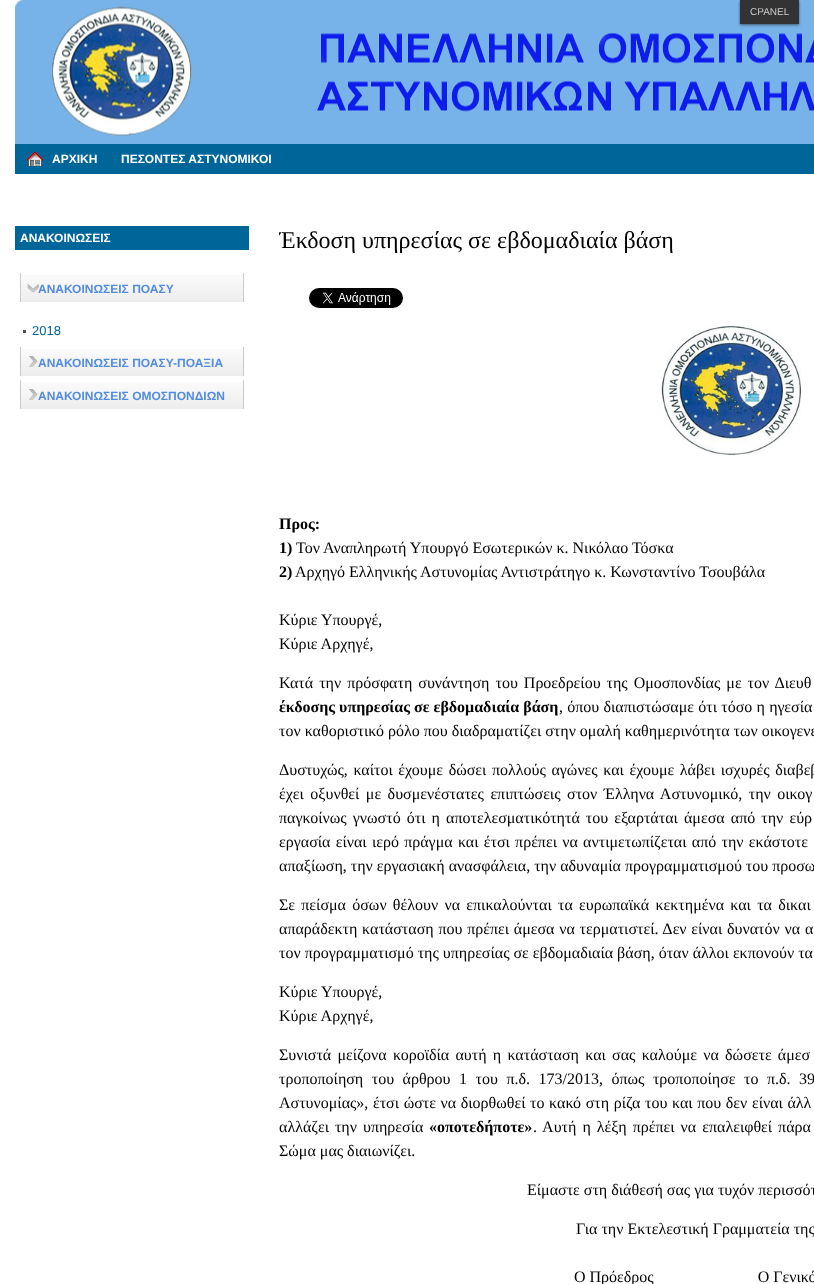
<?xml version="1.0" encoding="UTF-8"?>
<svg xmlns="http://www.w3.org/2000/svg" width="814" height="1284">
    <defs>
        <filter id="blur1" x="-50%" y="-200%" width="200%" height="500%"><feGaussianBlur stdDeviation="1.5"/></filter>
        <clipPath id="clip1"><rect x="279" y="226" width="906" height="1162"/></clipPath>
    </defs>
    <rect width="100%" height="100%" fill="#FFFFFF"/>
    <image x="15" y="0" width="799" height="144" href="img_01.png"/>
    <rect x="740" y="1" width="59" height="24" fill="#000000" fill-opacity="0.5" filter="url(#blur1)"/>
    <rect x="740" y="0" width="59" height="24" fill="#333333"/>
    <text x="750" y="15" font-family="Liberation Sans" font-size="10" fill="#CCCCCC">CPANEL</text>
    <rect x="15" y="144" width="799" height="30" fill="#006699"/>
    <image x="27" y="152" width="16" height="14" href="img_02.png"/>
    <text x="52" y="163" font-family="Liberation Sans" font-size="12" font-weight="700" fill="#FFFFFF">ΑΡΧΙΚΗ</text>
    <text x="121" y="163" font-family="Liberation Sans" font-size="12" font-weight="700" fill="#FFFFFF">ΠΕΣΟΝΤΕΣ ΑΣΤΥΝΟΜΙΚΟΙ</text>
    <rect x="15" y="226" width="234" height="24" fill="#006699"/>
    <text x="20" y="242" font-family="Liberation Sans" font-size="12" font-weight="700" fill="#FFFFFF">ΑΝΑΚΟΙΝΩΣΕΙΣ</text>
    <image x="21" y="275" width="222" height="27" href="img_03.png"/>
    <rect x="243" y="273" width="1" height="29" fill="#CCCCCC"/>
    <rect x="20" y="273" width="1" height="29" fill="#CCCCCC"/>
    <text x="38" y="293" font-family="Liberation Sans" font-size="12" font-weight="700" fill="#528CE0">ΑΝΑΚΟΙΝΩΣΕΙΣ ΠΟΑΣΥ</text>
    <rect x="23" y="330" width="3" height="3" fill="#4E4E4E"/>
    <text x="32" y="335" font-family="Liberation Sans" font-size="13" fill="#006699">2018</text>
    <image x="21" y="349" width="222" height="27" href="img_04.png"/>
    <rect x="243" y="347" width="1" height="29" fill="#CCCCCC"/>
    <rect x="20" y="347" width="1" height="29" fill="#CCCCCC"/>
    <text x="38" y="367" font-family="Liberation Sans" font-size="12" font-weight="700" fill="#528CE0">ΑΝΑΚΟΙΝΩΣΕΙΣ ΠΟΑΣΥ-ΠΟΑΞΙΑ</text>
    <image x="21" y="382" width="222" height="27" href="img_04.png"/>
    <rect x="243" y="380" width="1" height="29" fill="#CCCCCC"/>
    <rect x="20" y="380" width="1" height="29" fill="#CCCCCC"/>
    <text x="38" y="400" font-family="Liberation Sans" font-size="12" font-weight="700" fill="#528CE0">ΑΝΑΚΟΙΝΩΣΕΙΣ ΟΜΟΣΠΟΝΔΙΩΝ</text>
    <g clip-path="url(#clip1)">
        <text x="279" y="248" font-family="Liberation Serif" font-size="24" fill="#000000">Έκδοση υπηρεσίας σε εβδομαδιαία βάση</text>
    </g>
    <image x="309" y="288" width="94" height="20" href="img_05.png"/>
    <image x="657" y="325" width="144" height="131" href="img_06.png"/>
    <text font-family="Liberation Serif" font-size="16" font-weight="700" fill="#000000">
        <tspan x="279" y="529">Προς:</tspan>
        <tspan x="279" y="553">1)</tspan>
    </text>
    <text x="296" y="553" font-family="Liberation Serif" font-size="16" fill="#000000">Τον Αναπληρωτή Υπουργό Εσωτερικών κ. Νικόλαο Τόσκα</text>
    <text x="279" y="577" font-family="Liberation Serif" font-size="16" font-weight="700" fill="#000000">2)</text>
    <text x="295" y="577" font-family="Liberation Serif" font-size="16" fill="#000000">Αρχηγό Ελληνικής Αστυνομίας Αντιστράτηγο κ. Κωνσταντίνο Τσουβάλα</text>
    <text font-family="Liberation Serif" font-size="16" fill="#000000">
        <tspan x="279" y="625">Κύριε Υπουργέ,</tspan>
        <tspan x="279" y="649">Κύριε Αρχηγέ,</tspan>
    </text>
    <text x="279" y="688" word-spacing="2" font-family="Liberation Serif" font-size="16" fill="#000000">Κατά την πρόσφατη συνάντηση του Προεδρείου της Ομοσπονδίας με τον Διευθ</text>
    <text x="279" y="712" font-family="Liberation Serif" font-size="16" font-weight="700" fill="#000000">έκδοσης υπηρεσίας σε εβδομαδιαία βάση</text>
    <text x="559" y="712" word-spacing="0.25" font-family="Liberation Serif" font-size="16" fill="#000000">, όπου διαπιστώσαμε ότι τόσο η ηγεσία</text>
    <text x="279" y="736" font-family="Liberation Serif" font-size="16" fill="#000000">τον καθοριστικό ρόλο που διαδραματίζει στην ομαλή καθημερινότητα των οικογενε</text>
    <text font-family="Liberation Serif" font-size="16" fill="#000000">
        <tspan x="279" y="775" word-spacing="1.6">Δυστυχώς, καίτοι έχουμε δώσει πολλούς αγώνες και έχουμε λάβει ισχυρές διαβεβ</tspan>
        <tspan x="279" y="799" word-spacing="2.5">έχει οξυνθεί με δυσμενέστατες επιπτώσεις στον Έλληνα Αστυνομικό, την οικογ</tspan>
        <tspan x="279" y="823" word-spacing="2.1">παγκοίνως γνωστό ότι η αποτελεσματικότητά του εξαρτάται άμεσα από την εύρ</tspan>
        <tspan x="279" y="847" word-spacing="1.25">εργασία είναι ιερό πράγμα και έτσι πρέπει να αντιμετωπίζεται από την εκάστοτε</tspan>
        <tspan x="279" y="871">απαξίωση, την εργασιακή ανασφάλεια, την αδυναμία προγραμματισμού του προσω</tspan>
    </text>
    <text font-family="Liberation Serif" font-size="16" fill="#000000">
        <tspan x="279" y="910" word-spacing="2.25">Σε πείσμα όσων θέλουν να επικαλούνται τα ευρωπαϊκά κεκτημένα και τα δικαι</tspan>
        <tspan x="279" y="934" word-spacing="0.75">απαράδεκτη κατάσταση που πρέπει άμεσα να τερματιστεί. Δεν είναι δυνατόν να α</tspan>
        <tspan x="279" y="958">τον προγραμματισμό της υπηρεσίας σε εβδομαδιαία βάση, όταν άλλοι εκπονούν τα</tspan>
    </text>
    <text font-family="Liberation Serif" font-size="16" fill="#000000">
        <tspan x="279" y="997">Κύριε Υπουργέ,</tspan>
        <tspan x="279" y="1021">Κύριε Αρχηγέ,</tspan>
    </text>
    <text font-family="Liberation Serif" font-size="16" fill="#000000">
        <tspan x="279" y="1060" word-spacing="2.25">Συνιστά μείζονα κοροϊδία αυτή η κατάσταση και σας καλούμε να δώσετε άμεσ</tspan>
        <tspan x="279" y="1084" word-spacing="4.5">τροποποίηση του άρθρου 1 του π.δ. 173/2013, όπως τροποποίησε το π.δ. 39</tspan>
        <tspan x="279" y="1108" word-spacing="0.6">Αστυνομίας», έτσι ώστε να διορθωθεί το κακό στη ρίζα του και που δεν είναι άλλ</tspan>
        <tspan x="279" y="1132" word-spacing="2">αλλάζει την υπηρεσία</tspan>
    </text>
    <text x="429" y="1132" font-family="Liberation Serif" font-size="16" font-weight="700" fill="#000000">«οποτεδήποτε»</text>
    <text x="533" y="1132" word-spacing="2" font-family="Liberation Serif" font-size="16" fill="#000000">. Αυτή η λέξη πρέπει να επαλειφθεί πάρα</text>
    <text x="279" y="1156" font-family="Liberation Serif" font-size="16" fill="#000000">Σώμα μας διαιωνίζει.</text>
    <text x="527" y="1195" font-family="Liberation Serif" font-size="16" fill="#000000">Είμαστε στη διάθεσή σας για τυχόν περισσότ</text>
    <text x="576" y="1234" font-family="Liberation Serif" font-size="16" fill="#000000">Για την Εκτελεστική Γραμματεία της</text>
    <text x="574" y="1282" font-family="Liberation Serif" font-size="16" fill="#000000" xml:space="preserve">O Πρόεδρος                          Ο Γενικό</text>
</svg>
